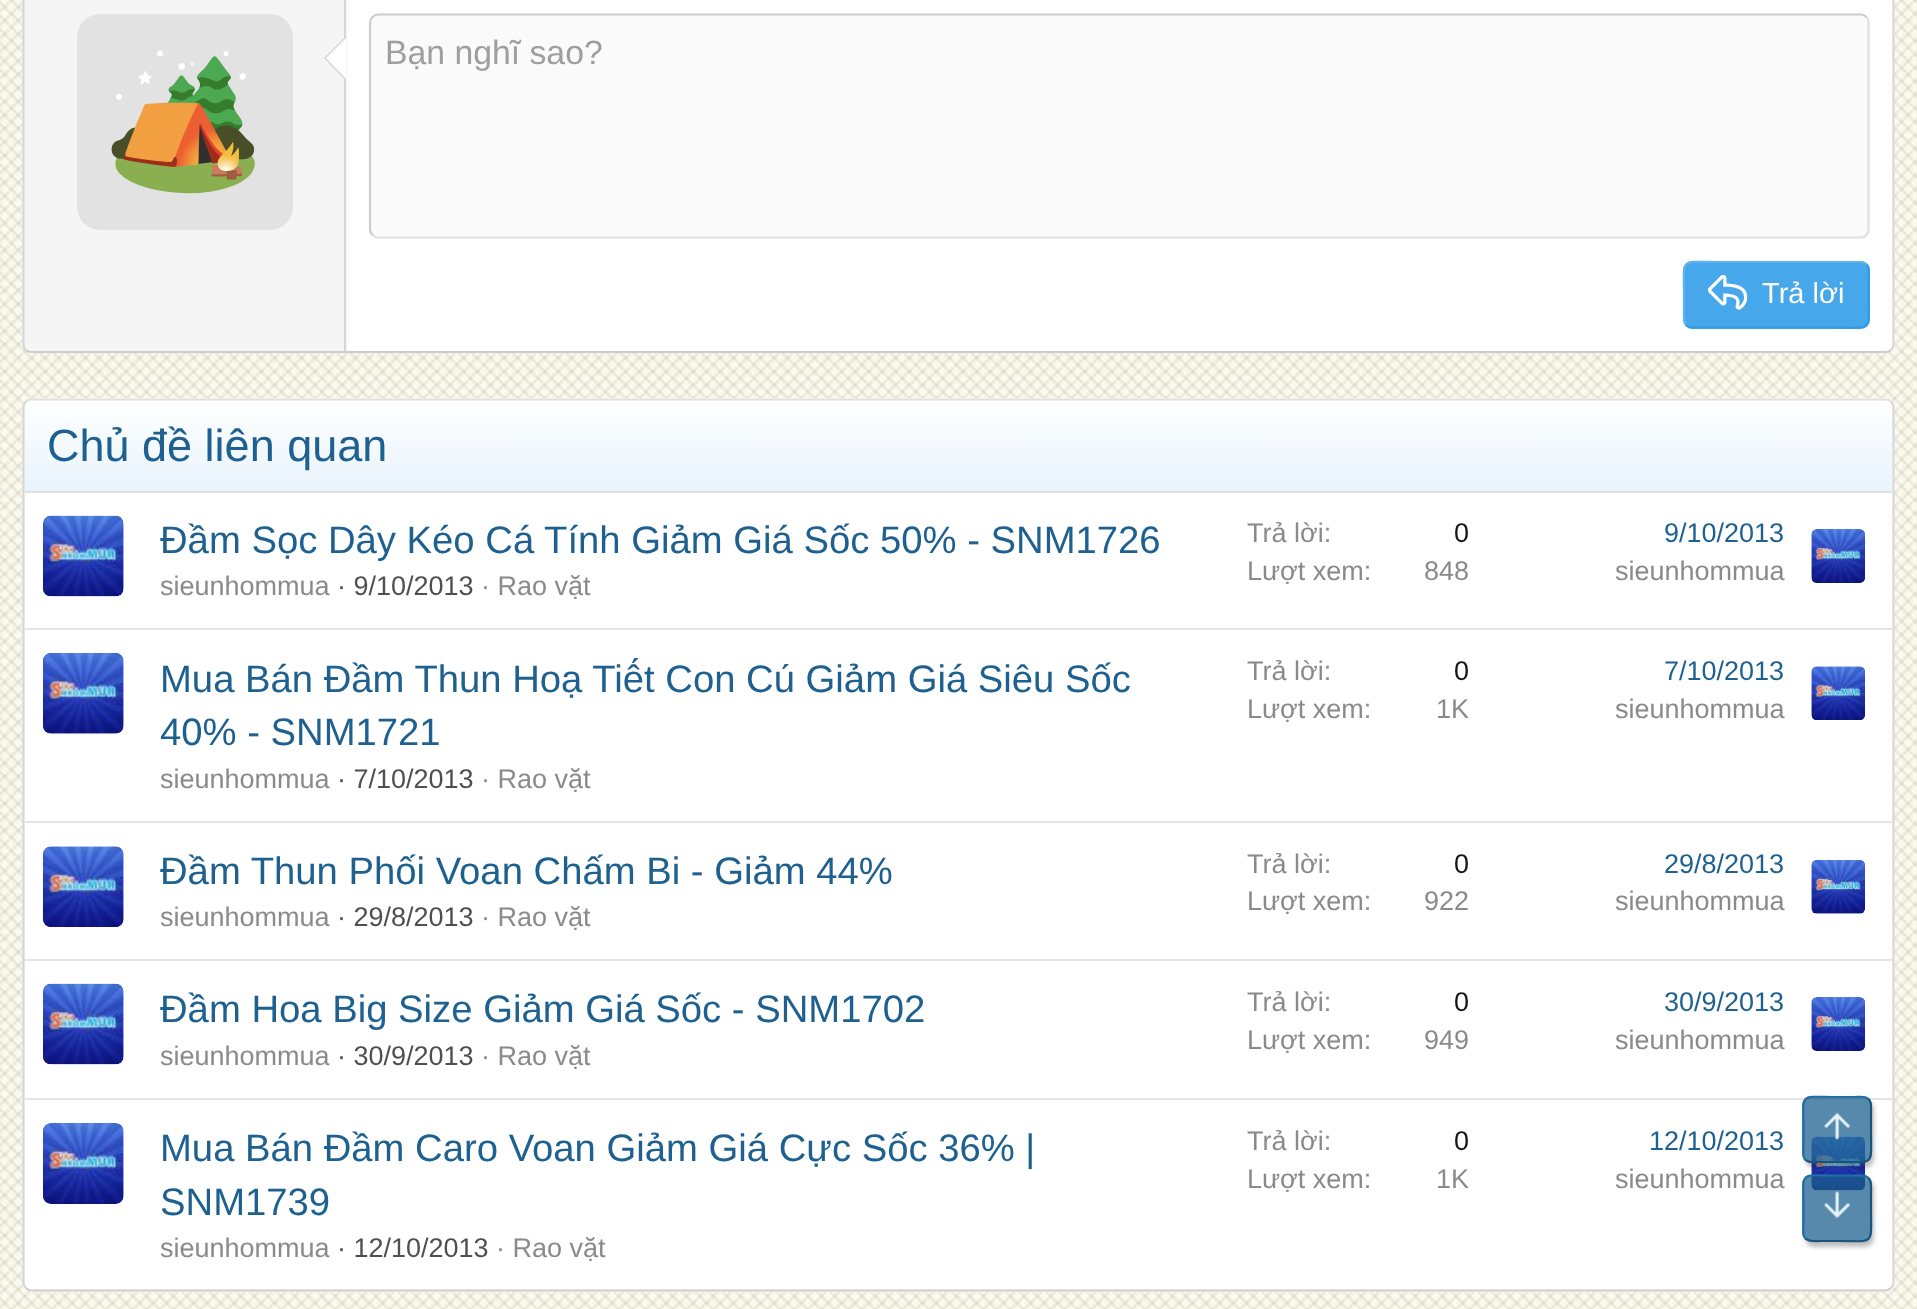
<?xml version="1.0" encoding="UTF-8"?>
<svg xmlns="http://www.w3.org/2000/svg" width="1917" height="1309">
    <defs>
        <linearGradient id="g1" gradientUnits="userSpaceOnUse" x1="959" y1="491" x2="959" y2="401"><stop offset="0" stop-color="#E8F4FC"/><stop offset="1" stop-color="#FFFFFF"/></linearGradient>
        <clipPath id="clip1"><path d="M 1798 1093 H 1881 V 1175 H 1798 Z M 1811 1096 H 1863 C 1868 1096 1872 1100 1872 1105 V 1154 C 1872 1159 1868 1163 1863 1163 H 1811 C 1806 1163 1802 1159 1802 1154 V 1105 C 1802 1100 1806 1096 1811 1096 Z" clip-rule="evenodd"/></clipPath>
        <filter id="blur1" x="-50%" y="-200%" width="200%" height="500%"><feGaussianBlur stdDeviation="2"/></filter>
        <clipPath id="clip2"><path d="M 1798 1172 H 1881 V 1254 H 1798 Z M 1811 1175 H 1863 C 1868 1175 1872 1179 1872 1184 V 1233 C 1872 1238 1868 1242 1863 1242 H 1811 C 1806 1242 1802 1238 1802 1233 V 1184 C 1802 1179 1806 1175 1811 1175 Z" clip-rule="evenodd"/></clipPath>
    </defs>
    <rect width="100%" height="100%" fill="#FFFFFF"/>
    <image x="0" y="0" width="1917" height="1309" href="img_01.png"/>
    <rect x="23" y="-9" width="1872" height="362" rx="9" fill="#FFFFFF"/>
    <path d="M 1891 -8 C 1892.5 -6.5 1893.5 -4.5 1893.5 -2.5 V 344 C 1893.5 346.5 1892.5 348.5 1891 350" fill="none" stroke="#D6D6D6" stroke-width="2.2"/>
    <path d="M 1891 350 C 1889.5 351.5 1887.5 352 1885.5 352 H 31.5 C 29.5 352 27.5 351.5 26 350" fill="none" stroke="#CCCCCC" stroke-width="2.2"/>
    <path d="M 26 350 C 24.5 348.5 23.5 346.5 23.5 344 V -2 C 23.5 -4.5 24.5 -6.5 26 -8" fill="none" stroke="#D6D6D6" stroke-width="2.2"/>
    <path d="M 32 -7 H 347 V 351 H 32 C 28 351 25 348 25 344 V 0 C 25 -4 28 -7 32 -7 Z" fill="#F5F5F5"/>
    <rect x="344" y="0" width="2" height="351" fill="#D6D6D6"/>
    <rect x="77" y="14" width="216" height="216" rx="23" fill="#E2E2E2"/>
    <text x="103" y="166" font-family="Noto Color Emoji" font-size="130" fill="#8A8A8A">🏕️</text>
    <path d="M 346 36 V 81 L 324 58 Z" fill="#D6D6D6"/>
    <path d="M 346 38 V 79 L 326 58 Z" fill="#FFFFFF"/>
    <rect x="369" y="14" width="1501" height="225" rx="9" fill="#FAFAFA"/>
    <path d="M 1866.5 17 C 1868 18.5 1868.5 20.5 1868.5 22.5 V 229.5 C 1868.5 231.5 1868 233.5 1866.5 235 C 1865 236.5 1863 237.5 1861 237.5 H 378 C 376 237.5 374 236.5 372.5 235" fill="none" stroke="#E0E0E0" stroke-width="2.2"/>
    <path d="M 372.5 235 C 371 233.5 370 231.5 370 229.5 V 22.5 C 370 20.5 371 18.5 372.5 17 C 374 15.5 376 14.5 378 14.5 H 1861 C 1863 14.5 1865 15.5 1866.5 17" fill="none" stroke="#CCCCCC" stroke-width="2.2"/>
    <text x="385" y="64" font-family="Liberation Sans" font-size="33.75" fill="#9E9E9E">Bạn nghĩ sao?</text>
    <rect x="1683" y="261" width="187" height="68" rx="9" fill="#47A7EB"/>
    <path d="M 1866.5 264.5 C 1870 268 1868.5 274 1868.5 278 V 295 C 1868.5 333 1873.5 327.5 1832.5 327.5 H 1692 C 1690 327.5 1688 326.5 1686.5 325" fill="none" stroke="#309CE8" stroke-width="2.2"/>
    <path d="M 1686.5 325 C 1683 321.5 1684 315.5 1684 311 V 295 C 1684 256.5 1679 262 1720 262 H 1861 C 1863 262 1865 263 1866.5 264.5" fill="none" stroke="#5EB2ED" stroke-width="2.2"/>
    <image x="1708" y="275" width="40" height="35" href="img_02.png"/>
    <text x="1762" y="303" font-family="Liberation Sans" font-size="29" fill="#FFFFFF">Trả lời</text>
    <rect x="23" y="398" width="1872" height="894" rx="9" fill="#FFFFFF"/>
    <path d="M 26 401.5 C 27.5 400 29.5 399.5 31.5 399.5 H 1885.5 C 1887.5 399.5 1889.5 400 1891 401.5" fill="none" stroke="#E0E0E0" stroke-width="2.2"/>
    <path d="M 1891 401.5 C 1892.5 403 1893.5 405 1893.5 407 V 1282.5 C 1893.5 1284.5 1892.5 1286.5 1891 1288" fill="none" stroke="#D6D6D6" stroke-width="2.2"/>
    <path d="M 1891 1288 C 1889.5 1289.5 1887.5 1290.5 1885.5 1290.5 H 31.5 C 29.5 1290.5 27.5 1289.5 26 1288" fill="none" stroke="#CCCCCC" stroke-width="2.2"/>
    <path d="M 26 1288 C 24.5 1286.5 23.5 1284.5 23.5 1282.5 V 407 C 23.5 405 24.5 403 26 401.5" fill="none" stroke="#D6D6D6" stroke-width="2.2"/>
    <path d="M 32 401 H 1885 C 1889 401 1892 404 1892 408 V 491 H 25 V 408 C 25 404 28 401 32 401 Z" fill="url(#g1)"/>
    <rect x="25" y="491" width="1867" height="2" fill="#E0E0E0"/>
    <text x="47" y="461" font-family="Liberation Sans" font-size="45" fill="#1E6190">Chủ đề liên quan</text>
    <image x="43" y="515" width="81" height="82" href="img_03.png"/>
    <text x="160" y="553" font-family="Liberation Sans" font-size="38.25" fill="#1E6190">Đầm Sọc Dây Kéo Cá Tính Giảm Giá Sốc 50% - SNM1726</text>
    <text x="160" y="595" font-family="Liberation Sans" font-size="27" fill="#8A8A8A">sieunhommua</text>
    <text x="337" y="595" font-family="Liberation Sans" font-size="27" fill="#4F4F4F">· 9/10/2013</text>
    <text x="481" y="595" font-family="Liberation Sans" font-size="27" fill="#8A8A8A">· Rao vặt</text>
    <text x="1247" y="542" font-family="Liberation Sans" font-size="27" fill="#8A8A8A">Trả lời:</text>
    <text x="1454" y="542" font-family="Liberation Sans" font-size="27" fill="#141414">0</text>
    <text x="1247" y="580" font-family="Liberation Sans" font-size="27" fill="#8A8A8A">Lượt xem:</text>
    <text x="1424" y="580" font-family="Liberation Sans" font-size="27" fill="#8A8A8A">848</text>
    <text x="1664" y="542" font-family="Liberation Sans" font-size="27" fill="#1E6190">9/10/2013</text>
    <text x="1615" y="580" font-family="Liberation Sans" font-size="27" fill="#8A8A8A">sieunhommua</text>
    <image x="1811" y="529" width="54" height="54" href="img_04.png"/>
    <rect x="25" y="628" width="1867" height="2" fill="#E5E5E5"/>
    <image x="43" y="653" width="81" height="81" href="img_05.png"/>
    <text font-family="Liberation Sans" font-size="38.25" fill="#1E6190">
        <tspan x="160" y="692">Mua Bán Đầm Thun Hoạ Tiết Con Cú Giảm Giá Siêu Sốc</tspan>
        <tspan x="160" y="745">40% - SNM1721</tspan>
    </text>
    <text x="160" y="788" font-family="Liberation Sans" font-size="27" fill="#8A8A8A">sieunhommua</text>
    <text x="337" y="788" font-family="Liberation Sans" font-size="27" fill="#4F4F4F">· 7/10/2013</text>
    <text x="481" y="788" font-family="Liberation Sans" font-size="27" fill="#8A8A8A">· Rao vặt</text>
    <text x="1247" y="680" font-family="Liberation Sans" font-size="27" fill="#8A8A8A">Trả lời:</text>
    <text x="1454" y="680" font-family="Liberation Sans" font-size="27" fill="#141414">0</text>
    <text x="1247" y="718" font-family="Liberation Sans" font-size="27" fill="#8A8A8A">Lượt xem:</text>
    <text x="1436" y="718" font-family="Liberation Sans" font-size="27" fill="#8A8A8A">1K</text>
    <text x="1664" y="680" font-family="Liberation Sans" font-size="27" fill="#1E6190">7/10/2013</text>
    <text x="1615" y="718" font-family="Liberation Sans" font-size="27" fill="#8A8A8A">sieunhommua</text>
    <image x="1811" y="666" width="54" height="54" href="img_06.png"/>
    <rect x="25" y="821" width="1867" height="2" fill="#E5E5E5"/>
    <image x="42" y="846" width="82" height="81" href="img_07.png"/>
    <text x="160" y="884" font-family="Liberation Sans" font-size="38.25" fill="#1E6190">Đầm Thun Phối Voan Chấm Bi - Giảm 44%</text>
    <text x="160" y="926" font-family="Liberation Sans" font-size="27" fill="#8A8A8A">sieunhommua</text>
    <text x="337" y="926" font-family="Liberation Sans" font-size="27" fill="#4F4F4F">· 29/8/2013</text>
    <text x="481" y="926" font-family="Liberation Sans" font-size="27" fill="#8A8A8A">· Rao vặt</text>
    <text x="1247" y="873" font-family="Liberation Sans" font-size="27" fill="#8A8A8A">Trả lời:</text>
    <text x="1454" y="873" font-family="Liberation Sans" font-size="27" fill="#141414">0</text>
    <text x="1247" y="910" font-family="Liberation Sans" font-size="27" fill="#8A8A8A">Lượt xem:</text>
    <text x="1424" y="910" font-family="Liberation Sans" font-size="27" fill="#8A8A8A">922</text>
    <text x="1664" y="873" font-family="Liberation Sans" font-size="27" fill="#1E6190">29/8/2013</text>
    <text x="1615" y="910" font-family="Liberation Sans" font-size="27" fill="#8A8A8A">sieunhommua</text>
    <image x="1811" y="860" width="54" height="54" href="img_08.png"/>
    <rect x="25" y="959" width="1867" height="2" fill="#E5E5E5"/>
    <image x="43" y="983" width="81" height="82" href="img_09.png"/>
    <text x="160" y="1022" font-family="Liberation Sans" font-size="38.25" fill="#1E6190">Đầm Hoa Big Size Giảm Giá Sốc - SNM1702</text>
    <text x="160" y="1065" font-family="Liberation Sans" font-size="27" fill="#8A8A8A">sieunhommua</text>
    <text x="337" y="1065" font-family="Liberation Sans" font-size="27" fill="#4F4F4F">· 30/9/2013</text>
    <text x="481" y="1065" font-family="Liberation Sans" font-size="27" fill="#8A8A8A">· Rao vặt</text>
    <text x="1247" y="1011" font-family="Liberation Sans" font-size="27" fill="#8A8A8A">Trả lời:</text>
    <text x="1454" y="1011" font-family="Liberation Sans" font-size="27" fill="#141414">0</text>
    <text x="1247" y="1049" font-family="Liberation Sans" font-size="27" fill="#8A8A8A">Lượt xem:</text>
    <text x="1424" y="1049" font-family="Liberation Sans" font-size="27" fill="#8A8A8A">949</text>
    <text x="1664" y="1011" font-family="Liberation Sans" font-size="27" fill="#1E6190">30/9/2013</text>
    <text x="1615" y="1049" font-family="Liberation Sans" font-size="27" fill="#8A8A8A">sieunhommua</text>
    <image x="1811" y="997" width="54" height="54" href="img_04.png"/>
    <rect x="25" y="1098" width="1867" height="2" fill="#E5E5E5"/>
    <image x="43" y="1123" width="81" height="81" href="img_10.png"/>
    <text font-family="Liberation Sans" font-size="38.25" fill="#1E6190">
        <tspan x="160" y="1161">Mua Bán Đầm Caro Voan Giảm Giá Cực Sốc 36% |</tspan>
        <tspan x="160" y="1215">SNM1739</tspan>
    </text>
    <text x="160" y="1257" font-family="Liberation Sans" font-size="27" fill="#8A8A8A">sieunhommua</text>
    <text x="337" y="1257" font-family="Liberation Sans" font-size="27" fill="#4F4F4F">· 12/10/2013</text>
    <text x="496" y="1257" font-family="Liberation Sans" font-size="27" fill="#8A8A8A">· Rao vặt</text>
    <text x="1247" y="1150" font-family="Liberation Sans" font-size="27" fill="#8A8A8A">Trả lời:</text>
    <text x="1454" y="1150" font-family="Liberation Sans" font-size="27" fill="#141414">0</text>
    <text x="1247" y="1188" font-family="Liberation Sans" font-size="27" fill="#8A8A8A">Lượt xem:</text>
    <text x="1436" y="1188" font-family="Liberation Sans" font-size="27" fill="#8A8A8A">1K</text>
    <text x="1649" y="1150" font-family="Liberation Sans" font-size="27" fill="#1E6190">12/10/2013</text>
    <text x="1615" y="1188" font-family="Liberation Sans" font-size="27" fill="#8A8A8A">sieunhommua</text>
    <image x="1811" y="1136" width="54" height="55" href="img_11.png"/>
    <g clip-path="url(#clip1)">
        <rect x="1805" y="1100" width="69" height="68" rx="9" fill="#000000" fill-opacity="0.25" filter="url(#blur1)"/>
    </g>
    <rect x="1802" y="1096" width="70" height="67" rx="9" fill="#1E6190" fill-opacity="0.75"/>
    <path d="M 1868.5 1099 C 1872 1102.5 1871 1108.5 1871 1113 V 1129.5 C 1871 1167.5 1875.5 1162 1837 1162 H 1820 C 1815.5 1162 1809.5 1163.5 1805.5 1160" fill="none" stroke="#1A537B" stroke-width="2.2"/>
    <path d="M 1805.5 1160 C 1802 1156.5 1803.5 1150.5 1803.5 1146 V 1129.5 C 1803.5 1091.5 1798.5 1097 1837 1097 H 1854.5 C 1858.5 1097 1865 1095.5 1868.5 1099" fill="none" stroke="#226FA5" stroke-width="2.2"/>
    <image x="1824" y="1112" width="27" height="28" href="img_12.png"/>
    <g clip-path="url(#clip2)">
        <rect x="1805" y="1179" width="69" height="68" rx="9" fill="#000000" fill-opacity="0.25" filter="url(#blur1)"/>
    </g>
    <rect x="1802" y="1175" width="70" height="67" rx="9" fill="#1E6190" fill-opacity="0.75"/>
    <path d="M 1868.5 1178 C 1872 1181.5 1871 1187.5 1871 1192 V 1208 C 1871 1246.5 1875.5 1241 1837 1241 H 1820 C 1815.5 1241 1809.5 1242 1805.5 1238.5" fill="none" stroke="#1A537B" stroke-width="2.2"/>
    <path d="M 1805.5 1238.5 C 1802 1235 1803.5 1229 1803.5 1225 V 1208 C 1803.5 1170 1798.5 1175.5 1837 1175.5 H 1854.5 C 1858.5 1175.5 1865 1174.5 1868.5 1178" fill="none" stroke="#226FA5" stroke-width="2.2"/>
    <image x="1824" y="1191" width="27" height="28" href="img_13.png"/>
</svg>
